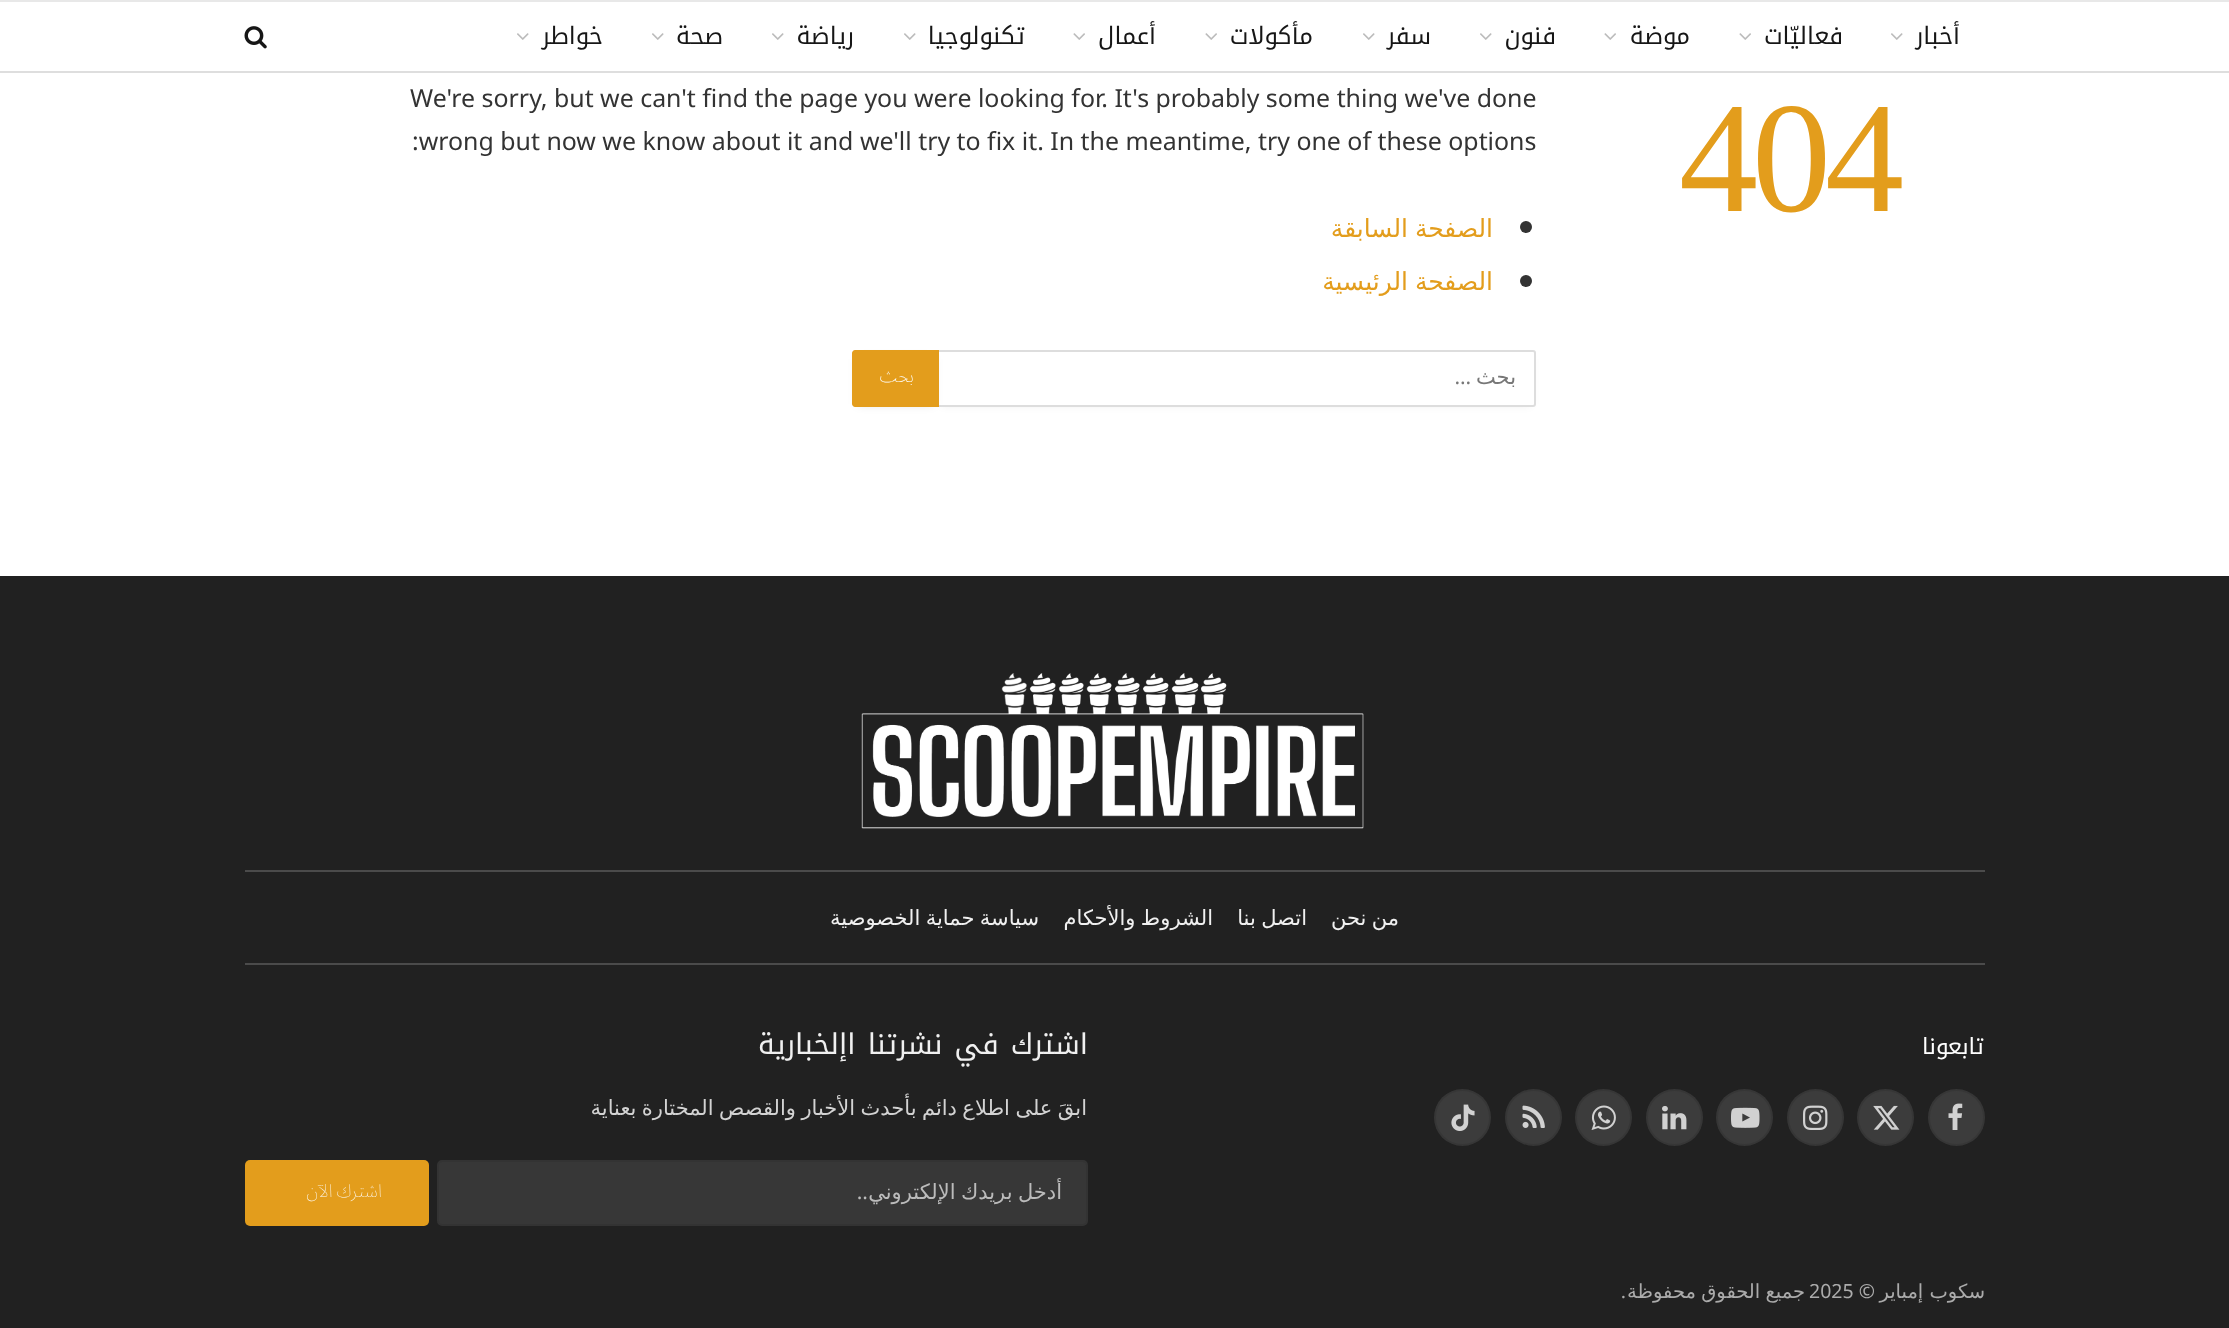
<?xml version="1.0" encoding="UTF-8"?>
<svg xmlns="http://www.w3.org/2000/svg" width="2229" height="1328">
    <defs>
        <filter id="blur1" x="-50%" y="-200%" width="200%" height="500%"><feGaussianBlur stdDeviation="5"/></filter>
    </defs>
    <rect width="100%" height="100%" fill="#FFFFFF"/>
    <rect x="0" y="0" width="2229" height="2" fill="#E8E8E8"/>
    <rect x="0" y="71" width="2229" height="2" fill="#DEDEDE"/>
    <text x="1960" y="44" font-family="Noto Kufi Arabic" font-size="24" direction="rtl" fill="#161616">أخبار</text>
    <image x="1891" y="33" width="12" height="7" href="img_01.png"/>
    <text x="1843" y="44" font-family="Noto Kufi Arabic" font-size="24" direction="rtl" fill="#161616">فعاليّات</text>
    <image x="1739" y="33" width="12" height="7" href="img_02.png"/>
    <text x="1690" y="44" font-family="Noto Kufi Arabic" font-size="24" direction="rtl" fill="#161616">موضة</text>
    <image x="1604" y="33" width="12" height="7" href="img_02.png"/>
    <text x="1556" y="44" font-family="Noto Kufi Arabic" font-size="24" direction="rtl" fill="#161616">فنون</text>
    <image x="1480" y="33" width="12" height="7" href="img_01.png"/>
    <text x="1431" y="44" font-family="Noto Kufi Arabic" font-size="24" direction="rtl" fill="#161616">سفر</text>
    <image x="1363" y="33" width="12" height="7" href="img_01.png"/>
    <text x="1313" y="44" font-family="Noto Kufi Arabic" font-size="24" direction="rtl" fill="#161616">مأكولات</text>
    <image x="1205" y="33" width="12" height="7" href="img_02.png"/>
    <text x="1156" y="44" font-family="Noto Kufi Arabic" font-size="24" direction="rtl" fill="#161616">أعمال</text>
    <image x="1073" y="33" width="12" height="7" href="img_02.png"/>
    <text x="1025" y="44" font-family="Noto Kufi Arabic" font-size="24" direction="rtl" fill="#161616">تكنولوجيا</text>
    <image x="904" y="33" width="12" height="7" href="img_01.png"/>
    <text x="854" y="44" font-family="Noto Kufi Arabic" font-size="24" direction="rtl" fill="#161616">رياضة</text>
    <image x="772" y="33" width="12" height="7" href="img_01.png"/>
    <text x="723" y="44" font-family="Noto Kufi Arabic" font-size="24" direction="rtl" fill="#161616">صحة</text>
    <image x="652" y="33" width="12" height="7" href="img_01.png"/>
    <text x="603" y="44" font-family="Noto Kufi Arabic" font-size="24" direction="rtl" fill="#161616">خواطر</text>
    <image x="517" y="33" width="12" height="7" href="img_01.png"/>
    <image x="244" y="26" width="23" height="23" href="img_03.png"/>
    <text x="1679" y="211" font-family="Liberation Serif" font-size="158" letter-spacing="-6" fill="#E39D1C">404</text>
    <text x="410" y="107" font-family="Noto Sans Arabic" font-size="24.9" fill="#333333">We're sorry, but we can't find the page you were looking for. It's probably some thing we've done</text>
    <text x="412" y="150" font-family="Noto Sans Arabic" font-size="24.9" fill="#333333">:wrong but now we know about it and we'll try to fix it. In the meantime, try one of these options</text>
    <circle cx="1526" cy="227" r="6" fill="#333333"/>
    <text x="1493" y="237" word-spacing="-1" font-family="DejaVu Sans" font-size="24.9" direction="rtl" fill="#E39D1C">الصفحة السابقة</text>
    <circle cx="1526" cy="281" r="6" fill="#333333"/>
    <text x="1493" y="290" word-spacing="-1" font-family="DejaVu Sans" font-size="24.9" direction="rtl" fill="#E39D1C">الصفحة الرئيسية</text>
    <rect x="942" y="359" width="588" height="45" fill="#000000" fill-opacity="0.1" filter="url(#blur1)"/>
    <rect x="937" y="351" width="598" height="55" rx="2" fill="#FFFFFF" stroke="#DDDDDD" stroke-width="2"/>
    <text x="1516" y="384" font-family="DejaVu Sans" font-size="21" direction="rtl" fill="#777777">بحث</text>
    <text x="1471" y="384" font-family="Noto Sans Arabic" font-size="21" direction="rtl" fill="#777777">…</text>
    <rect x="858" y="359" width="75" height="45" fill="#000000" fill-opacity="0.16" filter="url(#blur1)"/>
    <path d="M 855 350 H 939 V 407 H 855 C 853.5 407 852 405.5 852 404 V 353 C 852 351.5 853.5 350 855 350 Z" fill="#E39D1C"/>
    <text x="914" y="382" font-family="Noto Sans Arabic" font-size="18" font-weight="200" letter-spacing="0.5" direction="rtl" fill="#FFFFFF">بحث</text>
    <rect x="0" y="576" width="2229" height="752" fill="#212121"/>
    <image x="861" y="673" width="503" height="156" href="img_04.png"/>
    <rect x="245" y="870" width="1740" height="2" fill="#4B4B4B"/>
    <text x="1399" y="925" word-spacing="-1.25" font-family="DejaVu Sans" font-size="21" direction="rtl" fill="#F0F0F0">من نحن</text>
    <text x="1307" y="925" word-spacing="-1.25" font-family="DejaVu Sans" font-size="21" direction="rtl" fill="#F0F0F0">اتصل بنا</text>
    <text x="1213" y="925" word-spacing="-1.25" font-family="DejaVu Sans" font-size="21" direction="rtl" fill="#F0F0F0">الشروط والأحكام</text>
    <text x="1039" y="925" word-spacing="-1.25" font-family="DejaVu Sans" font-size="21" direction="rtl" fill="#F0F0F0">سياسة حماية الخصوصية</text>
    <rect x="245" y="963" width="1740" height="2" fill="#4B4B4B"/>
    <text x="1984" y="1054" font-family="Noto Kufi Arabic" font-size="22.5" direction="rtl" fill="#FFFFFF">تابعونا</text>
    <circle cx="1956.5" cy="1117.5" r="28.5" fill="#3C3C3C"/>
    <circle cx="1956.5" cy="1117.5" r="27.5" fill="none" stroke="#000000" stroke-opacity="0.09" stroke-width="2"/>
    <image x="1948" y="1103" width="15" height="27" href="img_05.png"/>
    <circle cx="1885.5" cy="1117.5" r="28.5" fill="#3C3C3C"/>
    <circle cx="1885.5" cy="1117.5" r="27.5" fill="none" stroke="#000000" stroke-opacity="0.09" stroke-width="2"/>
    <image x="1873" y="1105" width="27" height="25" href="img_06.png"/>
    <circle cx="1815.5" cy="1117.5" r="28.5" fill="#3C3C3C"/>
    <circle cx="1815.5" cy="1117.5" r="27.5" fill="none" stroke="#000000" stroke-opacity="0.09" stroke-width="2"/>
    <image x="1803" y="1105" width="25" height="25" href="img_07.png"/>
    <circle cx="1744.5" cy="1117.5" r="28.5" fill="#3C3C3C"/>
    <circle cx="1744.5" cy="1117.5" r="27.5" fill="none" stroke="#000000" stroke-opacity="0.09" stroke-width="2"/>
    <image x="1731" y="1107" width="29" height="21" href="img_08.png"/>
    <circle cx="1674.5" cy="1117.5" r="28.5" fill="#3C3C3C"/>
    <circle cx="1674.5" cy="1117.5" r="27.5" fill="none" stroke="#000000" stroke-opacity="0.09" stroke-width="2"/>
    <image x="1662" y="1106" width="25" height="24" href="img_09.png"/>
    <circle cx="1603.5" cy="1117.5" r="28.5" fill="#3C3C3C"/>
    <circle cx="1603.5" cy="1117.5" r="27.5" fill="none" stroke="#000000" stroke-opacity="0.09" stroke-width="2"/>
    <image x="1591" y="1105" width="25" height="25" href="img_10.png"/>
    <circle cx="1533.5" cy="1117.5" r="28.5" fill="#3C3C3C"/>
    <circle cx="1533.5" cy="1117.5" r="27.5" fill="none" stroke="#000000" stroke-opacity="0.09" stroke-width="2"/>
    <image x="1522" y="1105" width="23" height="23" href="img_11.png"/>
    <circle cx="1462.5" cy="1117.5" r="28.5" fill="#3C3C3C"/>
    <circle cx="1462.5" cy="1117.5" r="27.5" fill="none" stroke="#000000" stroke-opacity="0.09" stroke-width="2"/>
    <image x="1451" y="1104" width="24" height="27" href="img_12.png"/>
    <text x="1088" y="1054" word-spacing="2.5" font-family="Noto Kufi Arabic" font-size="28.5" letter-spacing="-0.25" direction="rtl" fill="#F0F0F0">اشترك في نشرتنا اإلخبارية</text>
    <text x="1087" y="1115" word-spacing="-1.25" font-family="DejaVu Sans" font-size="21" direction="rtl" fill="#D3D3D3">ابقَ على اطلاع دائم بأحدث الأخبار والقصص المختارة بعناية</text>
    <rect x="438" y="1161" width="649" height="64" rx="4" fill="#373737" stroke="#333333" stroke-width="2"/>
    <text x="1062" y="1199" word-spacing="-1.25" font-family="DejaVu Sans" font-size="21" direction="rtl" fill="#BBBBBB">أدخل بريدك الإلكتروني</text>
    <text x="868" y="1199" font-family="Noto Sans Arabic" font-size="21" direction="rtl" fill="#BBBBBB">..</text>
    <rect x="245" y="1160" width="184" height="66" rx="5" fill="#E39D1C"/>
    <text x="382" y="1197" word-spacing="-1" font-family="Noto Sans Arabic" font-size="18" font-weight="100" letter-spacing="1" direction="rtl" fill="#FFFFFF">اشترك الآن</text>
    <text x="1985" y="1298" font-family="DejaVu Sans" font-size="19.5" direction="rtl" fill="#ABABAB">سكوب إمباير</text>
    <text x="1875" y="1298" font-family="Noto Sans Arabic" font-size="19.5" direction="rtl" fill="#ABABAB">©</text>
    <text x="1809" y="1298" font-family="Noto Sans Arabic" font-size="19.5" fill="#ABABAB">2025</text>
    <text x="1805" y="1298" word-spacing="-1" font-family="DejaVu Sans" font-size="19.5" direction="rtl" fill="#ABABAB">جميع الحقوق محفوظة</text>
    <text x="1626" y="1298" font-family="Noto Sans Arabic" font-size="19.5" direction="rtl" fill="#ABABAB">.</text>
</svg>
